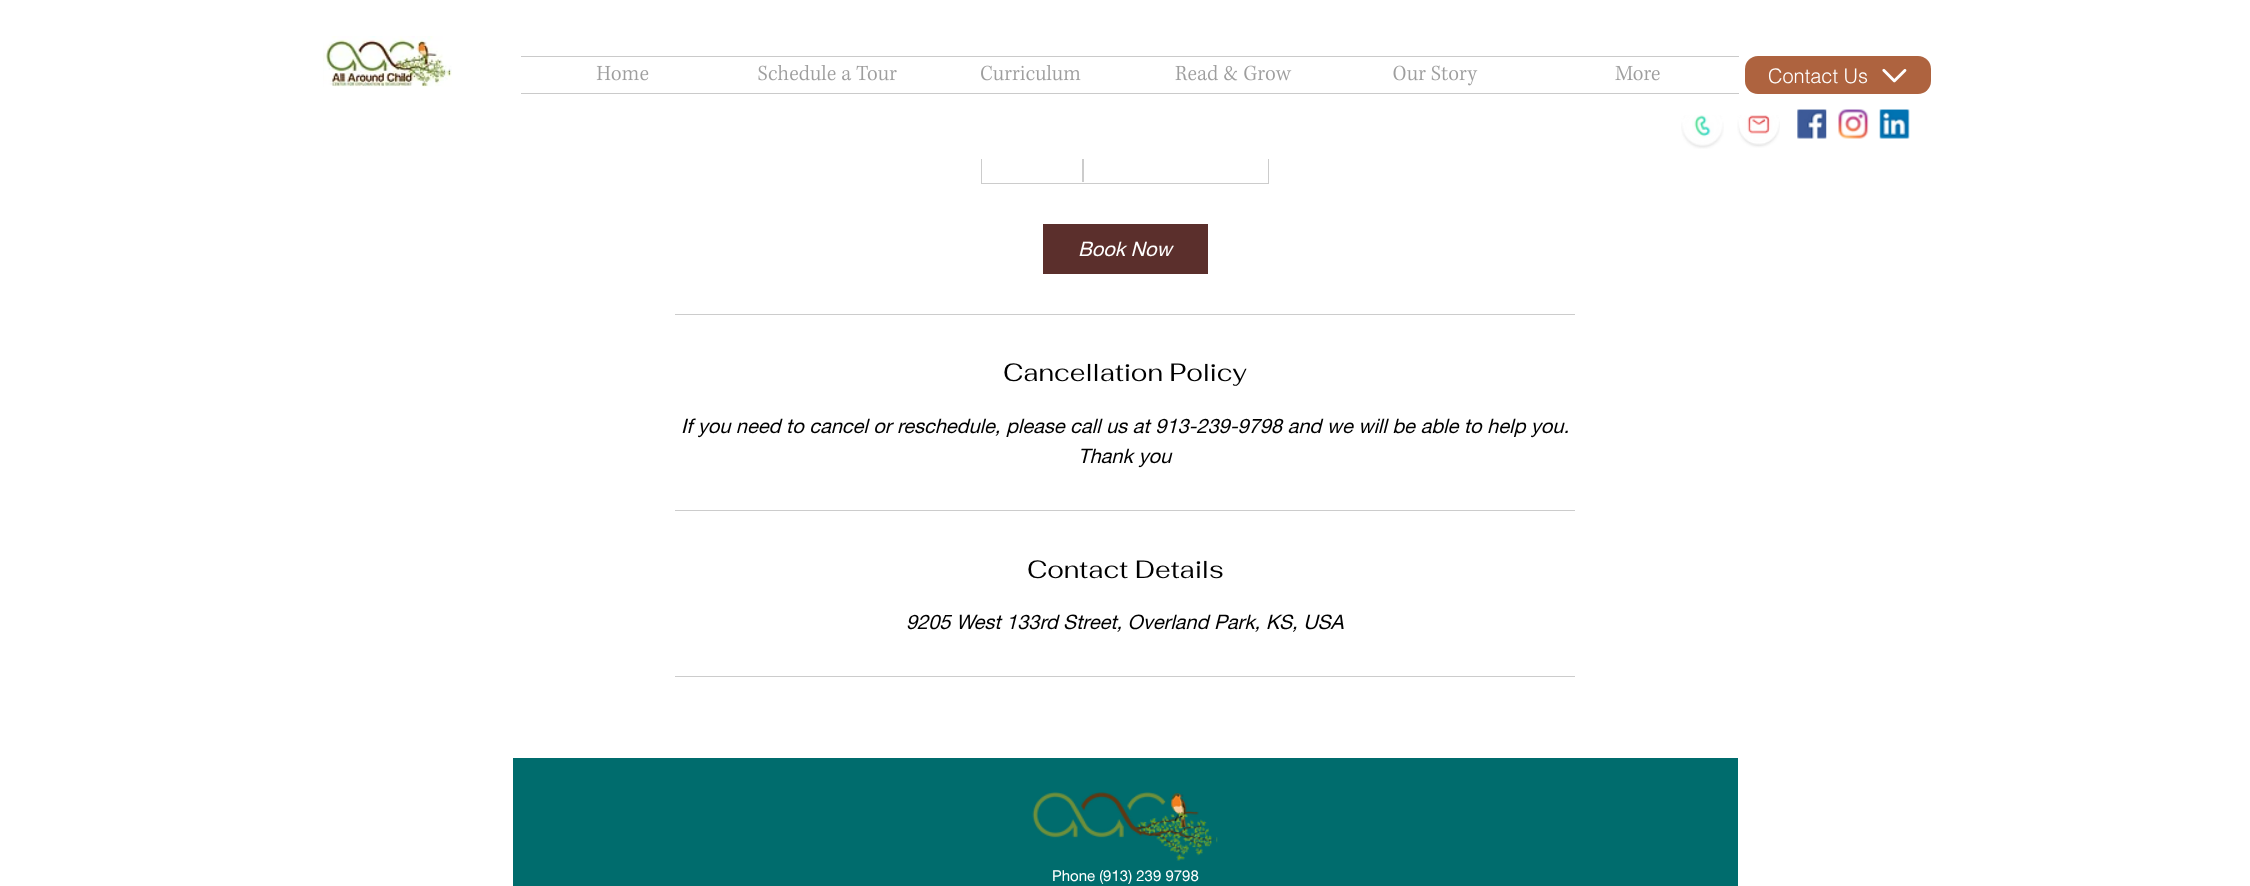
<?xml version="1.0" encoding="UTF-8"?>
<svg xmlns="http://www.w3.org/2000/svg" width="2250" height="886">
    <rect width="100%" height="100%" fill="#FFFFFF"/>
    <image x="323" y="36" width="129" height="51" href="img_01.png"/>
    <rect x="521" y="56" width="1218" height="1" fill="#CACACA"/>
    <rect x="521" y="93" width="1218" height="1" fill="#CACACA"/>
    <image x="596" y="65" width="53" height="16" href="img_02.png"/>
    <image x="758" y="65" width="139" height="16" href="img_03.png"/>
    <image x="981" y="65" width="100" height="16" href="img_04.png"/>
    <image x="1175" y="65" width="117" height="16" href="img_05.png"/>
    <image x="1393" y="65" width="85" height="21" href="img_06.png"/>
    <image x="1615" y="65" width="45" height="16" href="img_07.png"/>
    <rect x="1745" y="56" width="186" height="38" rx="13" fill="#AE633F"/>
    <text x="1768" y="83" font-family="helvetica" font-size="20" font-weight="300" fill="#FFFFFF">Contact Us</text>
    <image x="1882" y="68" width="25" height="15" href="img_08.png"/>
    <image x="1681" y="115" width="43" height="34" href="img_09.png"/>
    <image x="1737" y="115" width="43" height="33" href="img_10.png"/>
    <image x="1797" y="109" width="30" height="30" href="img_11.png"/>
    <image x="1838" y="109" width="31" height="30" href="img_12.png"/>
    <image x="1879" y="109" width="31" height="30" href="img_13.png"/>
    <rect x="981.5" y="111.5" width="287" height="72" fill="none" stroke="#CCCCCC"/>
    <path d="M 1082 182 V 111 L 1084 112 V 182 Z" fill="#CCCCCC"/>
    <rect x="981" y="111" width="288" height="48" fill="#FFFFFF"/>
    <rect x="1043" y="224" width="165" height="50" fill="#5B2F2C"/>
    <text x="1078" y="256" font-family="helvetica neue" font-size="20" font-style="italic" fill="#FFFFFF">Book Now</text>
    <rect x="675" y="314" width="900" height="1" fill="#CCCCCC"/>
    <text x="1003" y="381" font-family="Fahkwang" font-size="25" fill="#000000">Cancellation Policy</text>
    <text x="681" y="433" font-family="helvetica neue" font-size="20" font-style="italic" fill="#000000">If you need to cancel or reschedule, please call us at 913-239-9798 and we will be able to help you.</text>
    <text x="1078" y="463" font-family="helvetica neue" font-size="20" font-style="italic" fill="#000000">Thank you</text>
    <rect x="675" y="510" width="900" height="1" fill="#CCCCCC"/>
    <text x="1027" y="578" font-family="Fahkwang" font-size="25" fill="#000000">Contact Details</text>
    <text x="906" y="629" font-family="helvetica neue" font-size="20" font-style="italic" fill="#000000">9205 West 133rd Street, Overland Park, KS, USA</text>
    <rect x="675" y="676" width="900" height="1" fill="#CCCCCC"/>
    <rect x="513" y="758" width="1225" height="128" fill="#006C6D"/>
    <image x="1032" y="792" width="186" height="69" href="img_14.png"/>
    <text x="1052" y="881" font-family="helvetica neue" font-size="15" fill="#FFFFFF">Phone (913) 239 9798</text>
</svg>
